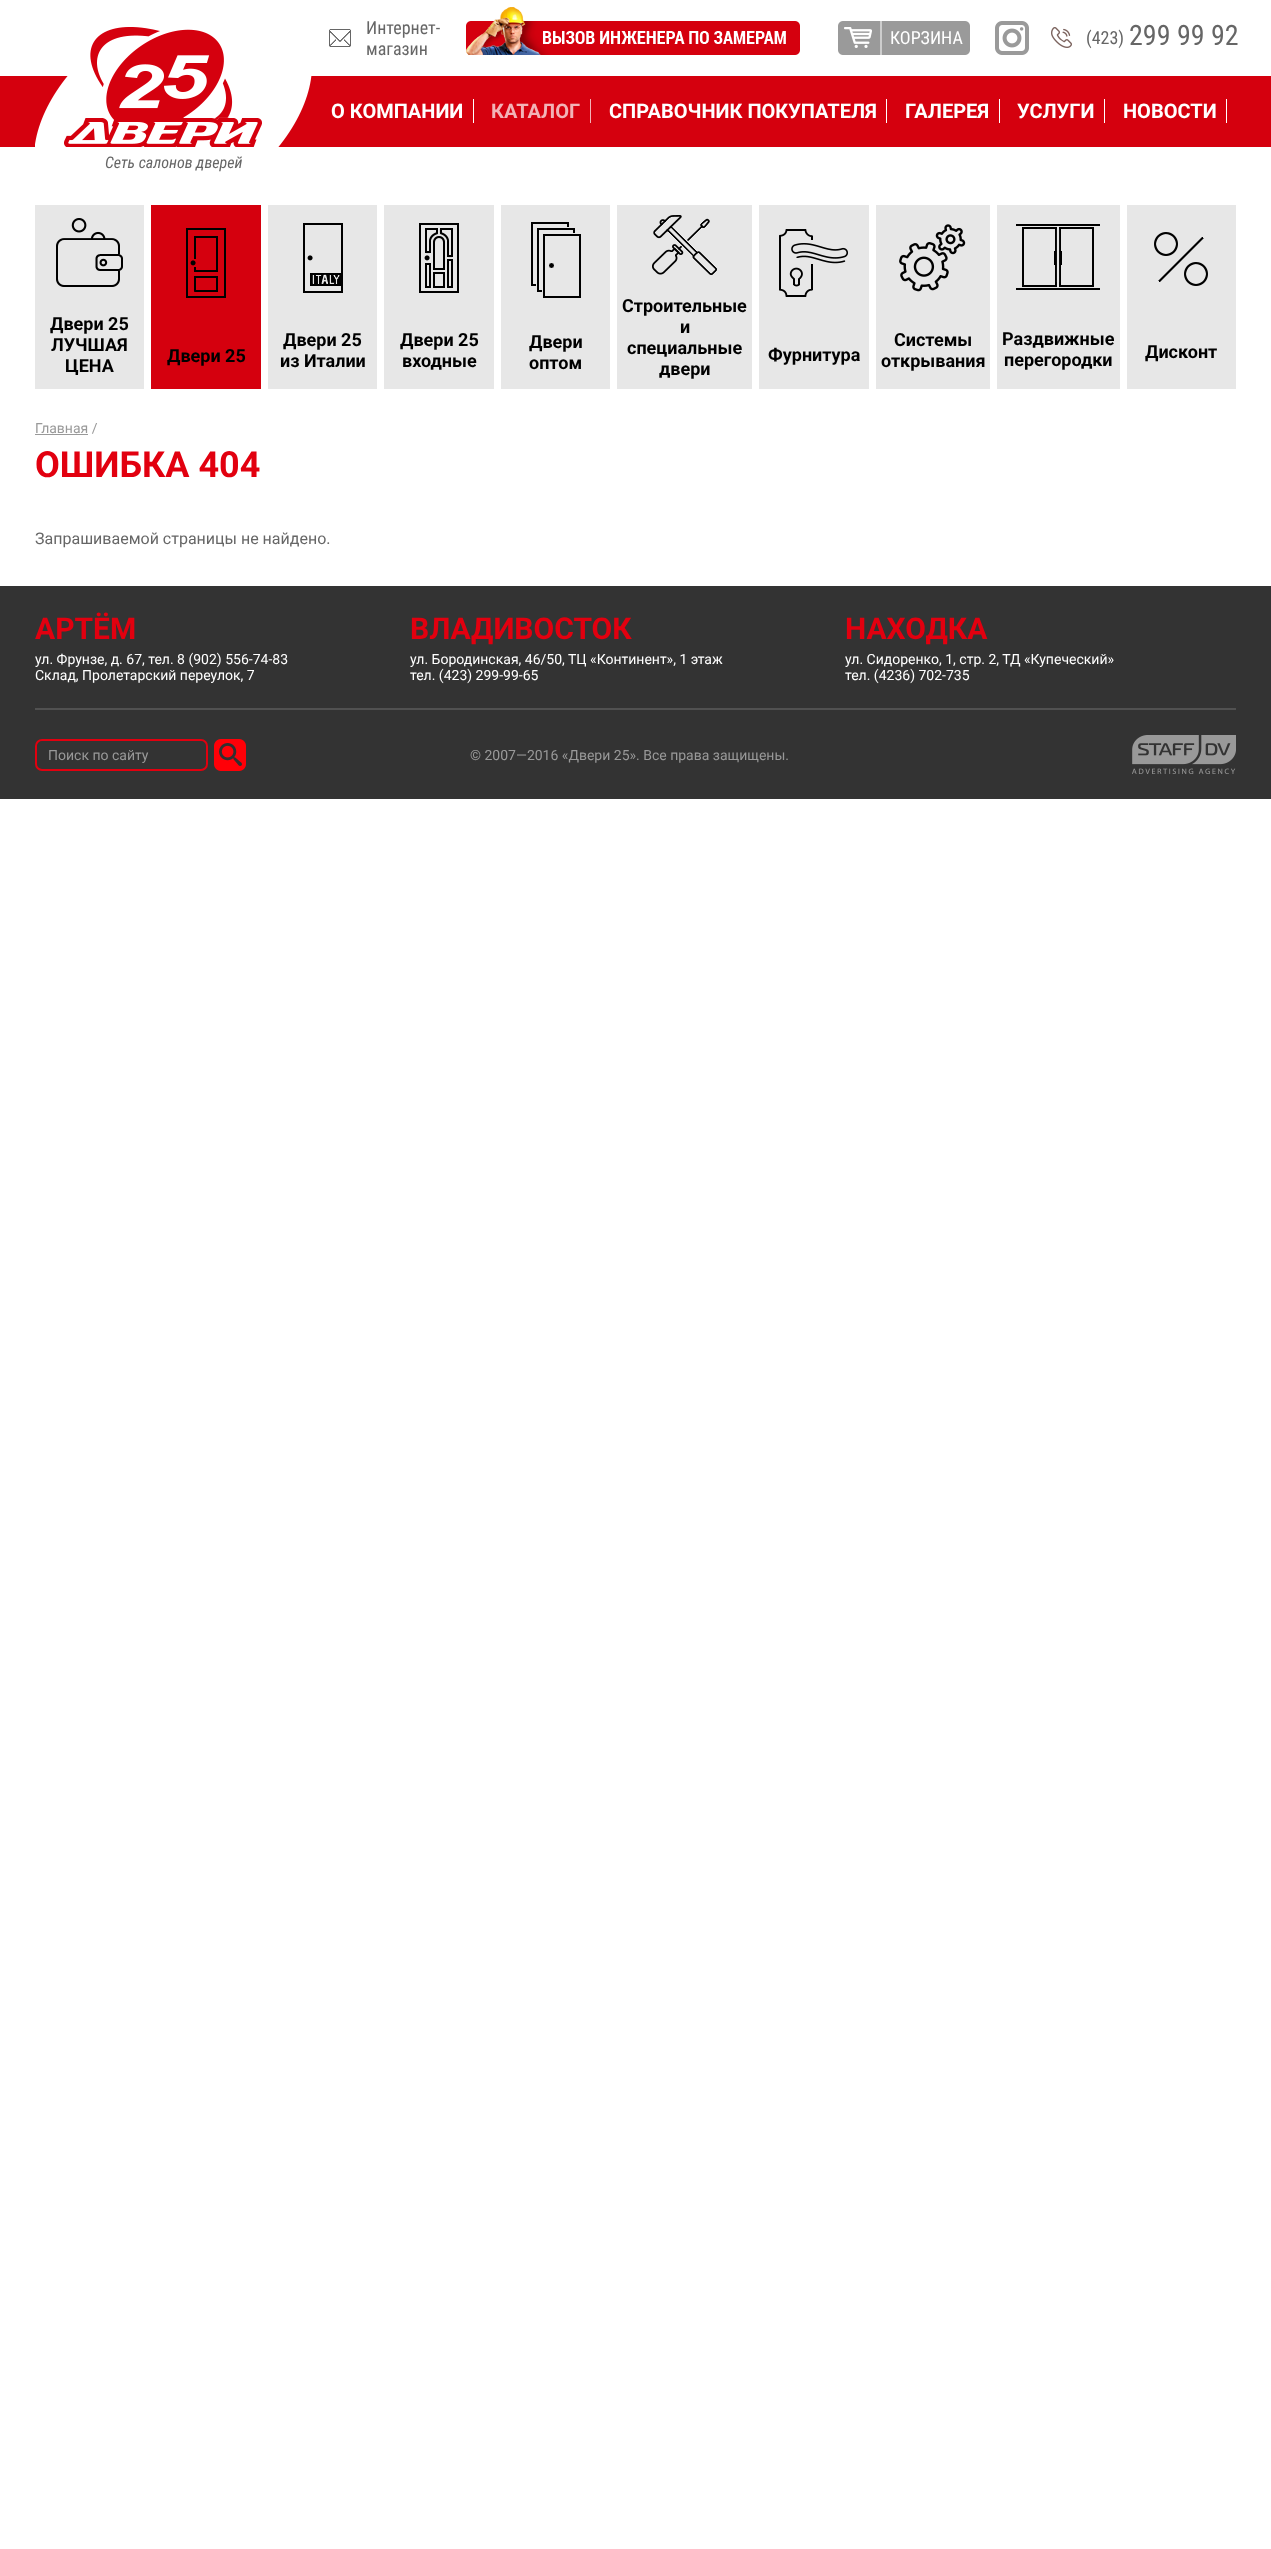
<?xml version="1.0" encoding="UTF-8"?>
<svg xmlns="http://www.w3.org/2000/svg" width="1271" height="2549">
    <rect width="100%" height="100%" fill="#FFFFFF"/>
    <rect x="0" y="76" width="1271" height="71" fill="#D5000E"/>
    <image x="329" y="29" width="22" height="18" href="img_01.png"/>
    <text font-family="Roboto Condensed" font-size="18" fill="#666666">
        <tspan x="366" y="34">Интернет-</tspan>
        <tspan x="366" y="55">магазин</tspan>
    </text>
    <image x="466" y="7" width="334" height="48" href="img_02.png"/>
    <image x="838" y="21" width="132" height="34" href="img_03.png"/>
    <text x="890" y="44" font-family="Roboto Condensed" font-size="18" fill="#FFFFFF">КОРЗИНА</text>
    <image x="995" y="21" width="34" height="34" href="img_04.png"/>
    <image x="1051" y="27" width="21" height="21" href="img_05.png"/>
    <text x="1086" y="44" font-family="Roboto Condensed" font-size="18" fill="#666666">(423)</text>
    <text x="1129" y="45" font-family="Roboto Condensed" font-size="28" fill="#666666">299 99 92</text>
    <rect x="473" y="99" width="1" height="24" fill="#FFFFFF"/>
    <text x="331" y="118" font-family="Roboto" font-size="20" font-weight="700" fill="#FFFFFF">О КОМПАНИИ</text>
    <rect x="590" y="99" width="1" height="24" fill="#F2B3B7"/>
    <text x="491" y="118" font-family="Roboto" font-size="20" font-weight="700" fill="#F2B3B7">КАТАЛОГ</text>
    <rect x="886" y="99" width="1" height="24" fill="#FFFFFF"/>
    <text x="609" y="118" font-family="Roboto" font-size="20" font-weight="700" fill="#FFFFFF">СПРАВОЧНИК ПОКУПАТЕЛЯ</text>
    <rect x="999" y="99" width="1" height="24" fill="#FFFFFF"/>
    <text x="905" y="118" font-family="Roboto" font-size="20" font-weight="700" fill="#FFFFFF">ГАЛЕРЕЯ</text>
    <rect x="1104" y="99" width="1" height="24" fill="#FFFFFF"/>
    <text x="1017" y="118" font-family="Roboto" font-size="20" font-weight="700" fill="#FFFFFF">УСЛУГИ</text>
    <rect x="1226" y="99" width="1" height="24" fill="#FFFFFF"/>
    <text x="1123" y="118" font-family="Roboto" font-size="20" font-weight="700" fill="#FFFFFF">НОВОСТИ</text>
    <image x="35" y="27" width="277" height="120" href="img_06.png"/>
    <text x="105" y="168" font-family="Roboto Condensed" font-size="16" font-style="italic" fill="#666666">Сеть салонов дверей</text>
    <rect x="35" y="205" width="109" height="184" fill="#E7E7E7"/>
    <image x="56" y="218" width="67" height="69" href="img_07.png"/>
    <text x="50" y="330" font-family="Roboto" font-size="18" font-weight="700" fill="#000000">Двери 25</text>
    <text x="51" y="351" font-family="Roboto" font-size="18" font-weight="700" fill="#000000">ЛУЧШАЯ</text>
    <text x="65" y="372" font-family="Roboto" font-size="18" font-weight="700" fill="#000000">ЦЕНА</text>
    <rect x="151" y="205" width="110" height="184" fill="#D5000E"/>
    <image x="186" y="228" width="40" height="70" href="img_08.png"/>
    <text x="167" y="362" font-family="Roboto" font-size="18" font-weight="700" fill="#000000">Двери 25</text>
    <rect x="268" y="205" width="109" height="184" fill="#E7E7E7"/>
    <image x="303" y="223" width="40" height="70" href="img_09.png"/>
    <text x="283" y="346" font-family="Roboto" font-size="18" font-weight="700" fill="#000000">Двери 25</text>
    <text x="280" y="367" font-family="Roboto" font-size="18" font-weight="700" fill="#000000">из Италии</text>
    <rect x="384" y="205" width="110" height="184" fill="#E7E7E7"/>
    <image x="419" y="223" width="40" height="70" href="img_10.png"/>
    <text x="400" y="346" font-family="Roboto" font-size="18" font-weight="700" fill="#000000">Двери 25</text>
    <text x="402" y="367" font-family="Roboto" font-size="18" font-weight="700" fill="#000000">входные</text>
    <rect x="501" y="205" width="109" height="184" fill="#E7E7E7"/>
    <image x="531" y="222" width="50" height="76" href="img_11.png"/>
    <text font-family="Roboto" font-size="18" font-weight="700" fill="#000000">
        <tspan x="529" y="348">Двери</tspan>
        <tspan x="529" y="369">оптом</tspan>
    </text>
    <rect x="617" y="205" width="135" height="184" fill="#E7E7E7"/>
    <image x="652" y="215" width="65" height="60" href="img_12.png"/>
    <text x="622" y="312" font-family="Roboto" font-size="18" font-weight="700" fill="#000000">Строительные</text>
    <text x="680" y="333" font-family="Roboto" font-size="18" font-weight="700" fill="#000000">и</text>
    <text x="627" y="354" font-family="Roboto" font-size="18" font-weight="700" fill="#000000">специальные</text>
    <text x="659" y="375" font-family="Roboto" font-size="18" font-weight="700" fill="#000000">двери</text>
    <rect x="759" y="205" width="110" height="184" fill="#E7E7E7"/>
    <image x="779" y="229" width="69" height="68" href="img_13.png"/>
    <text x="768" y="361" font-family="Roboto" font-size="18" font-weight="700" fill="#000000">Фурнитура</text>
    <rect x="876" y="205" width="114" height="184" fill="#E7E7E7"/>
    <image x="899" y="224" width="67" height="68" href="img_14.png"/>
    <text x="894" y="346" font-family="Roboto" font-size="18" font-weight="700" fill="#000000">Системы</text>
    <text x="881" y="367" font-family="Roboto" font-size="18" font-weight="700" fill="#000000">открывания</text>
    <rect x="997" y="205" width="123" height="184" fill="#E7E7E7"/>
    <image x="1016" y="224" width="84" height="66" href="img_15.png"/>
    <text x="1002" y="345" font-family="Roboto" font-size="18" font-weight="700" fill="#000000">Раздвижные</text>
    <text x="1004" y="366" font-family="Roboto" font-size="18" font-weight="700" fill="#000000">перегородки</text>
    <rect x="1127" y="205" width="109" height="184" fill="#E7E7E7"/>
    <image x="1154" y="232" width="54" height="54" href="img_16.png"/>
    <text x="1145" y="358" font-family="Roboto" font-size="18" font-weight="700" fill="#000000">Дисконт</text>
    <text x="35" y="433" font-family="Roboto" font-size="14" fill="#999999">Главная /</text>
    <rect x="35" y="434" width="53" height="1" fill="#999999"/>
    <text x="35" y="477" font-family="Roboto" font-size="36" font-weight="700" fill="#E2000F">ОШИБКА 404</text>
    <text x="35" y="544" font-family="Roboto" font-size="16" fill="#666666">Запрашиваемой страницы не найдено.</text>
    <rect x="0" y="586" width="1271" height="213" fill="#333333"/>
    <rect x="35" y="708" width="1201" height="2" fill="#515151"/>
    <text x="35" y="639" font-family="Roboto" font-size="30" font-weight="700" fill="#E2000F">АРТЁМ</text>
    <text font-family="Roboto" font-size="14" fill="#FFFFFF">
        <tspan x="35" y="664">ул. Фрунзе, д. 67, тел. 8 (902) 556-74-83</tspan>
        <tspan x="35" y="680">Склад, Пролетарский переулок, 7</tspan>
    </text>
    <text x="410" y="639" font-family="Roboto" font-size="30" font-weight="700" fill="#E2000F">ВЛАДИВОСТОК</text>
    <text font-family="Roboto" font-size="14" fill="#FFFFFF">
        <tspan x="410" y="664">ул. Бородинская, 46/50, ТЦ «Континент», 1 этаж</tspan>
        <tspan x="410" y="680">тел. (423) 299-99-65</tspan>
    </text>
    <text x="845" y="639" font-family="Roboto" font-size="30" font-weight="700" fill="#E2000F">НАХОДКА</text>
    <text font-family="Roboto" font-size="14" fill="#FFFFFF">
        <tspan x="845" y="664">ул. Сидоренко, 1, стр. 2, ТД «Купеческий»</tspan>
        <tspan x="845" y="680">тел. (4236) 702-735</tspan>
    </text>
    <rect x="36" y="740" width="171" height="30" rx="6" fill="none" stroke="#E2000F" stroke-width="2"/>
    <text x="48" y="760" font-family="Roboto" font-size="14" fill="#999999">Поиск по сайту</text>
    <image x="214" y="739" width="32" height="32" href="img_17.png"/>
    <text x="470" y="760" font-family="Roboto" font-size="14" fill="#999999">© 2007—2016 «Двери 25». Все права защищены.</text>
    <image x="1132" y="735" width="104" height="39" href="img_18.png"/>
</svg>
